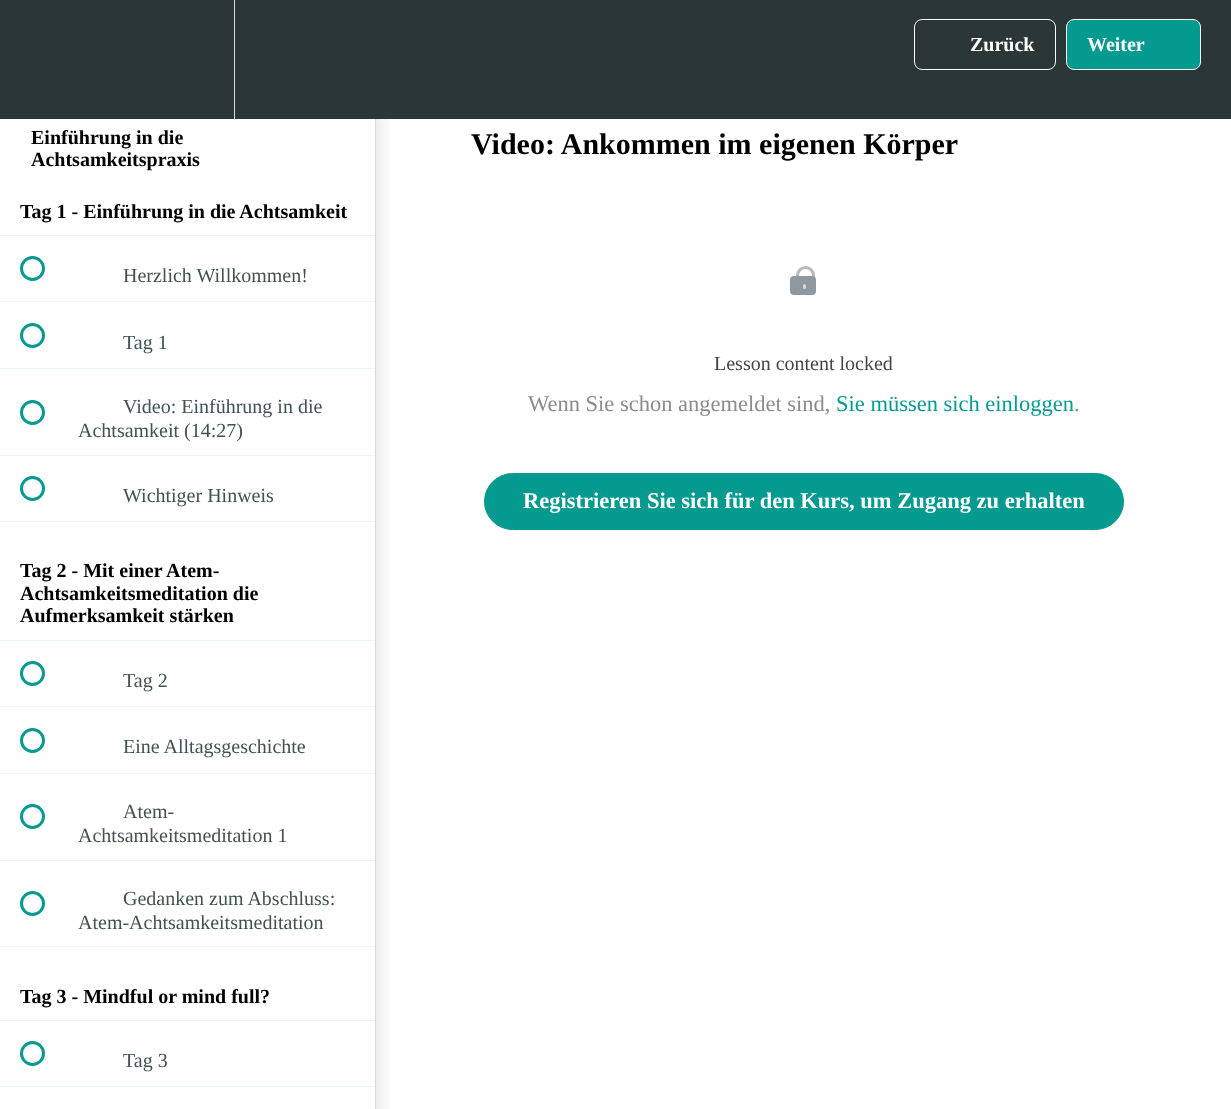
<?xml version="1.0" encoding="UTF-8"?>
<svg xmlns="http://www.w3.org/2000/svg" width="1231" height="1109">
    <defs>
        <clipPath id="clip1"><rect x="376" y="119" width="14" height="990"/></clipPath>
        <filter id="blur1" x="-50%" y="-200%" width="200%" height="500%"><feGaussianBlur stdDeviation="12.5"/></filter>
    </defs>
    <rect width="100%" height="100%" fill="#FFFFFF"/>
    <g clip-path="url(#clip1)">
        <rect x="0" y="103" width="376" height="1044" fill="#20272D" fill-opacity="0.15" filter="url(#blur1)"/>
    </g>
    <rect x="0" y="0" width="1231" height="119" fill="#2B3636"/>
    <rect x="234" y="0" width="1" height="119" fill="#D7DADB"/>
    <rect x="914.5" y="19.5" width="141" height="50" rx="7.5" fill="none" stroke="#FFFFFF"/>
    <text x="970" y="51" font-family="Liberation Serif" font-size="20" font-weight="700" fill="#FFFFFF">Zurück</text>
    <rect x="1066.5" y="19.5" width="134" height="50" rx="7.5" fill="#049A90" stroke="#FFFFFF"/>
    <text x="1087" y="51" font-family="Liberation Serif" font-size="20" font-weight="700" fill="#FFFFFF">Weiter</text>
    <rect x="375" y="119" width="1" height="990" fill="#D7DADB"/>
    <text font-family="Liberation Serif" font-size="20" font-weight="700" fill="#000000">
        <tspan x="31" y="144">Einführung in die</tspan>
        <tspan x="31" y="166">Achtsamkeitspraxis</tspan>
    </text>
    <rect x="0" y="235" width="375" height="1" fill="#E6F5F4"/>
    <text x="20" y="218" font-family="Liberation Serif" font-size="20" font-weight="700" fill="#000000">Tag 1 - Einführung in die Achtsamkeit</text>
    <rect x="0" y="301" width="375" height="1" fill="#E6F5F4"/>
    <circle cx="32.5" cy="268.5" r="11" fill="none" stroke="#049A90" stroke-width="3"/>
    <text x="123" y="282" font-family="Liberation Serif" font-size="20" fill="#425252">Herzlich Willkommen!</text>
    <rect x="0" y="368" width="375" height="1" fill="#E6F5F4"/>
    <circle cx="32.5" cy="335.5" r="11" fill="none" stroke="#049A90" stroke-width="3"/>
    <text x="123" y="349" font-family="Liberation Serif" font-size="20" fill="#425252">Tag 1</text>
    <rect x="0" y="455" width="375" height="1" fill="#E6F5F4"/>
    <circle cx="32.5" cy="412.5" r="11" fill="none" stroke="#049A90" stroke-width="3"/>
    <text x="123" y="413" font-family="Liberation Serif" font-size="20" fill="#425252">Video: Einführung in die</text>
    <text x="78" y="437" font-family="Liberation Serif" font-size="20" fill="#425252">Achtsamkeit (14:27)</text>
    <rect x="0" y="521" width="375" height="1" fill="#E6F5F4"/>
    <circle cx="32.5" cy="488.5" r="11" fill="none" stroke="#049A90" stroke-width="3"/>
    <text x="123" y="502" font-family="Liberation Serif" font-size="20" fill="#425252">Wichtiger Hinweis</text>
    <rect x="0" y="640" width="375" height="1" fill="#E6F5F4"/>
    <text font-family="Liberation Serif" font-size="20" font-weight="700" fill="#000000">
        <tspan x="20" y="577">Tag 2 - Mit einer Atem-</tspan>
        <tspan x="20" y="600">Achtsamkeitsmeditation die</tspan>
        <tspan x="20" y="622">Aufmerksamkeit stärken</tspan>
    </text>
    <rect x="0" y="706" width="375" height="1" fill="#E6F5F4"/>
    <circle cx="32.5" cy="673.5" r="11" fill="none" stroke="#049A90" stroke-width="3"/>
    <text x="123" y="687" font-family="Liberation Serif" font-size="20" fill="#425252">Tag 2</text>
    <rect x="0" y="773" width="375" height="1" fill="#E6F5F4"/>
    <circle cx="32.5" cy="740.5" r="11" fill="none" stroke="#049A90" stroke-width="3"/>
    <text x="123" y="753" font-family="Liberation Serif" font-size="20" fill="#425252">Eine Alltagsgeschichte</text>
    <rect x="0" y="860" width="375" height="1" fill="#E6F5F4"/>
    <circle cx="32.5" cy="816.5" r="11" fill="none" stroke="#049A90" stroke-width="3"/>
    <text x="123" y="818" font-family="Liberation Serif" font-size="20" fill="#425252">Atem-</text>
    <text x="78" y="842" font-family="Liberation Serif" font-size="20" fill="#425252">Achtsamkeitsmeditation 1</text>
    <rect x="0" y="946" width="375" height="1" fill="#E6F5F4"/>
    <circle cx="32.5" cy="903.5" r="11" fill="none" stroke="#049A90" stroke-width="3"/>
    <text x="123" y="905" font-family="Liberation Serif" font-size="20" fill="#425252">Gedanken zum Abschluss:</text>
    <text x="78" y="929" font-family="Liberation Serif" font-size="20" fill="#425252">Atem-Achtsamkeitsmeditation</text>
    <rect x="0" y="1020" width="375" height="1" fill="#E6F5F4"/>
    <text x="20" y="1003" font-family="Liberation Serif" font-size="20" font-weight="700" fill="#000000">Tag 3 - Mindful or mind full?</text>
    <rect x="0" y="1086" width="375" height="1" fill="#E6F5F4"/>
    <circle cx="32.5" cy="1053.5" r="11" fill="none" stroke="#049A90" stroke-width="3"/>
    <text x="123" y="1067" font-family="Liberation Serif" font-size="20" fill="#425252">Tag 3</text>
    <text x="471" y="154" font-family="Liberation Serif" font-size="30" font-weight="700" fill="#000000">Video: Ankommen im eigenen Körper</text>
    <rect x="797.5" y="267.5" width="16" height="25" rx="8" fill="none" stroke="#B5BABF" stroke-width="3"/>
    <rect x="790" y="276" width="26" height="19" rx="4" fill="#8F989F"/>
    <rect x="803" y="284" width="3" height="5" rx="1.5" fill="#D3D7DC"/>
    <text x="714" y="370" font-family="Liberation Serif" font-size="20" fill="#454545">Lesson content locked</text>
    <text x="528" y="411" font-family="Liberation Serif" font-size="22.5" fill="#8B8B8B">Wenn Sie schon angemeldet sind,</text>
    <text x="836" y="411" font-family="Liberation Serif" font-size="22.5" fill="#049A90">Sie müssen sich einloggen</text>
    <text x="1074" y="411" font-family="Liberation Serif" font-size="22.5" fill="#8B8B8B">.</text>
    <rect x="484.5" y="473.5" width="639" height="56" rx="28" fill="#049A90" stroke="#049A90"/>
    <text x="523" y="508" font-family="Liberation Serif" font-size="22.5" font-weight="700" fill="#FFFFFF">Registrieren Sie sich für den Kurs, um Zugang zu erhalten</text>
</svg>
